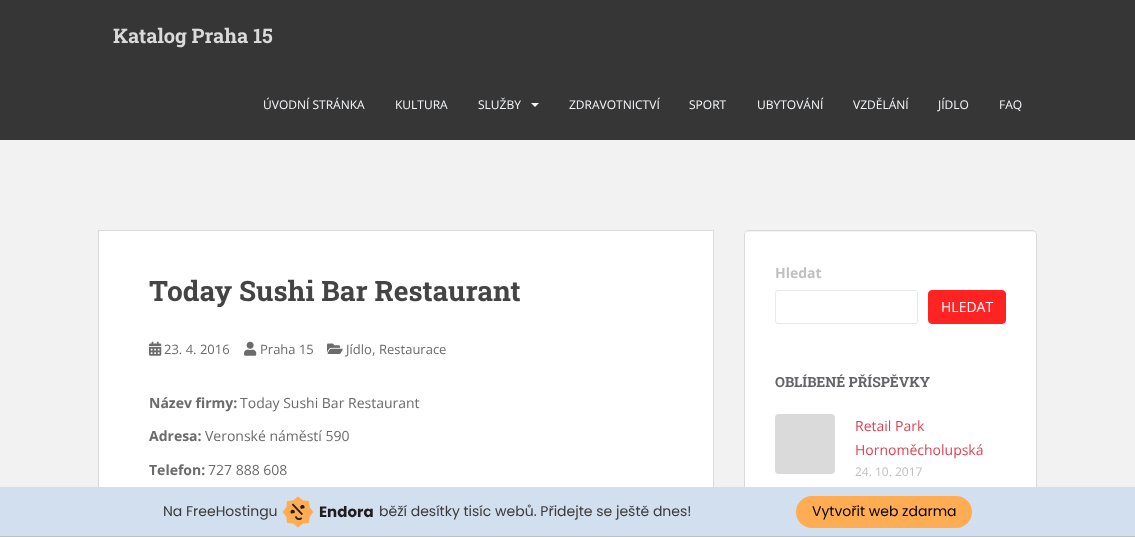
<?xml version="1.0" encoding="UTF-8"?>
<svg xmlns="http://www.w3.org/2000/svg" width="1135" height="537">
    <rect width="100%" height="100%" fill="#F2F2F2"/>
    <rect x="0" y="0" width="1135" height="140" fill="#363636"/>
    <text x="113" y="43" font-family="Roboto Slab" font-size="20" font-weight="700" fill="#DADADA">Katalog Praha 15</text>
    <text x="263" y="109" font-family="Open Sans" font-size="12" fill="#F5F7FA">ÚVODNÍ STRÁNKA</text>
    <text x="395" y="109" font-family="Open Sans" font-size="12" fill="#F5F7FA">KULTURA</text>
    <text x="478" y="109" font-family="Open Sans" font-size="12" fill="#F5F7FA">SLUŽBY</text>
    <path d="M 531 103 H 539 L 535 107 Z" fill="#F5F7FA"/>
    <text x="569" y="109" font-family="Open Sans" font-size="12" fill="#F5F7FA">ZDRAVOTNICTVÍ</text>
    <text x="689" y="109" font-family="Open Sans" font-size="12" fill="#F5F7FA">SPORT</text>
    <text x="757" y="109" font-family="Open Sans" font-size="12" fill="#F5F7FA">UBYTOVÁNÍ</text>
    <text x="853" y="109" font-family="Open Sans" font-size="12" fill="#F5F7FA">VZDĚLÁNÍ</text>
    <text x="938" y="109" font-family="Open Sans" font-size="12" fill="#F5F7FA">JÍDLO</text>
    <text x="999" y="109" font-family="Open Sans" font-size="12" fill="#F5F7FA">FAQ</text>
    <rect x="99" y="231" width="614" height="256" fill="#FFFFFF"/>
    <rect x="98.5" y="230.5" width="615" height="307" fill="none" stroke="#DADADA"/>
    <text x="149" y="301" font-family="Roboto Slab" font-size="28" font-weight="700" fill="#444444">Today Sushi Bar Restaurant</text>
    <image x="149" y="341" width="13" height="15" href="img_01.png"/>
    <text x="164" y="354" font-family="Open Sans" font-size="13" fill="#6B6B6B">23. 4. 2016</text>
    <image x="244" y="341" width="13" height="15" href="img_02.png"/>
    <text x="260" y="354" font-family="Open Sans" font-size="13" fill="#6B6B6B">Praha 15</text>
    <image x="327" y="343" width="16" height="11" href="img_03.png"/>
    <text x="346" y="354" font-family="Open Sans" font-size="13" fill="#6B6B6B">Jídlo</text>
    <text x="372" y="354" font-family="Open Sans" font-size="14" fill="#6B6B6B">,</text>
    <text x="379" y="354" font-family="Open Sans" font-size="13" fill="#6B6B6B">Restaurace</text>
    <text x="149" y="408" font-family="Open Sans" font-size="14" font-weight="700" fill="#6B6B6B">Název firmy:</text>
    <text x="240" y="408" font-family="Open Sans" font-size="14" fill="#6B6B6B">Today Sushi Bar Restaurant</text>
    <text x="149" y="441" font-family="Open Sans" font-size="14" font-weight="700" fill="#6B6B6B">Adresa:</text>
    <text x="205" y="441" font-family="Open Sans" font-size="14" fill="#6B6B6B">Veronské náměstí 590</text>
    <text x="149" y="475" font-family="Open Sans" font-size="14" font-weight="700" fill="#6B6B6B">Telefon:</text>
    <text x="208" y="475" font-family="Open Sans" font-size="14" fill="#6B6B6B">727 888 608</text>
    <rect x="744" y="230" width="293" height="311" rx="4" fill="#FFFFFF"/>
    <path d="M 748 232 H 1033 C 1035 232 1036 233 1036 235 C 1036 233 1035 231 1033 231 H 748 C 746 231 745 233 745 235 C 745 233 746 232 748 232 Z" fill="#F2F2F2"/>
    <rect x="744.5" y="230.5" width="292" height="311" rx="3.5" fill="none" stroke="#DADADA"/>
    <text x="775" y="278" font-family="Open Sans" font-size="14" font-weight="700" fill="#C1C0C0">Hledat</text>
    <rect x="775.5" y="290.5" width="142" height="33" rx="2.5" fill="none" stroke="#E8E8E8"/>
    <rect x="928.5" y="290.5" width="77" height="33" rx="3.5" fill="#FF2323" stroke="#FF2323"/>
    <text x="941" y="312" font-family="Open Sans" font-size="14" fill="#FFFFFF">HLEDAT</text>
    <text x="775" y="387" font-family="Roboto Slab" font-size="14" font-weight="700" fill="#636467">OBLÍBENÉ PŘÍSPĚVKY</text>
    <rect x="775" y="414" width="60" height="60" rx="4" fill="#DADADA"/>
    <text font-family="Open Sans" font-size="14" fill="#DA4453">
        <tspan x="855" y="431">Retail Park</tspan>
        <tspan x="855" y="455">Hornoměcholupská</tspan>
    </text>
    <text x="855" y="476" font-family="Open Sans" font-size="12" fill="#C1C0C0">24. 10. 2017</text>
    <rect x="0" y="487" width="1135" height="49" fill="#D2DFEF"/>
    <rect x="0" y="536" width="1135" height="1" fill="#BEBFC4"/>
    <text x="163" y="516" font-family="Poppins" font-size="14" fill="#3A3A3A">Na FreeHostingu</text>
    <image x="282" y="496" width="32" height="32" href="img_04.png"/>
    <text x="319" y="517" font-family="Poppins" font-size="15" font-weight="700" fill="#1E1E1E">Endora</text>
    <text x="379" y="516" font-family="Poppins" font-size="14" fill="#3A3A3A">běží desítky tisíc webů. Přidejte se ještě dnes!</text>
    <rect x="796" y="496" width="176" height="32" rx="16" fill="#FFAC52"/>
    <text x="812" y="516" font-family="Poppins" font-size="14" fill="#000000">Vytvořit web zdarma</text>
</svg>
